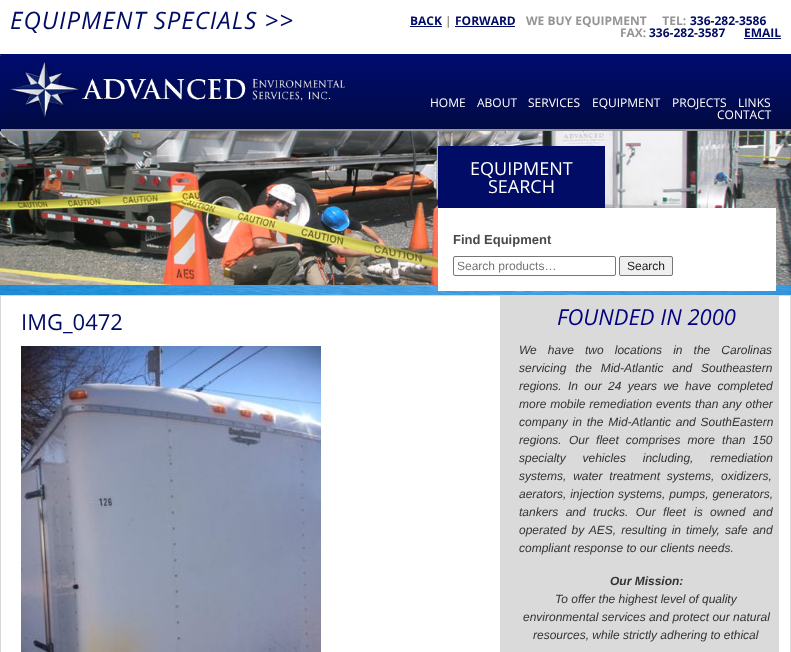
<?xml version="1.0" encoding="UTF-8"?>
<svg xmlns="http://www.w3.org/2000/svg" width="791" height="652">
    <defs>
        <linearGradient id="g1" gradientUnits="userSpaceOnUse" x1="396" y1="54" x2="396" y2="129"><stop offset="0" stop-color="#000C70"/><stop offset="1" stop-color="#010A43"/></linearGradient>
    </defs>
    <rect width="100%" height="100%" fill="#FFFFFF"/>
    <image x="0" y="285" width="791" height="10" href="img_01.png"/>
    <text x="10" y="29" font-family="Open Sans" font-size="24" font-style="italic" letter-spacing="1" fill="#000B64">EQUIPMENT SPECIALS &gt;&gt;</text>
    <text x="410" y="25" font-family="Open Sans" font-size="12" font-weight="700" fill="#000B64">BACK</text>
    <rect x="410" y="26" width="32" height="1" fill="#000B64"/>
    <text x="445" y="25" font-family="Open Sans" font-size="12" font-weight="700" fill="#959595">|</text>
    <text x="455" y="25" font-family="Open Sans" font-size="12" font-weight="700" fill="#000B64">FORWARD</text>
    <rect x="455" y="26" width="60" height="1" fill="#000B64"/>
    <text x="526" y="25" font-family="Open Sans" font-size="12" font-weight="700" fill="#959595" xml:space="preserve">WE BUY EQUIPMENT     TEL:</text>
    <text x="690" y="25" font-family="Open Sans" font-size="12" font-weight="700" fill="#000B64">336-282-3586</text>
    <text x="620" y="37" font-family="Open Sans" font-size="12" font-weight="700" fill="#959595">FAX:</text>
    <text x="649" y="37" font-family="Open Sans" font-size="12" font-weight="700" fill="#000B64">336-282-3587</text>
    <text x="744" y="37" font-family="Open Sans" font-size="12" font-weight="700" fill="#000B64">EMAIL</text>
    <rect x="744" y="38" width="37" height="1" fill="#000B64"/>
    <rect x="1" y="54" width="790" height="75" fill="url(#g1)"/>
    <rect x="0" y="129" width="791" height="2" fill="#959595"/>
    <image x="0" y="54" width="1" height="77" href="img_02.png"/>
    <image x="10" y="62" width="335" height="55" href="img_03.png"/>
    <text x="430" y="107" font-family="Open Sans" font-size="12" fill="#FFFFFF">HOME</text>
    <text x="477" y="107" font-family="Open Sans" font-size="12" fill="#FFFFFF">ABOUT</text>
    <text x="528" y="107" font-family="Open Sans" font-size="12" fill="#FFFFFF">SERVICES</text>
    <text x="592" y="107" font-family="Open Sans" font-size="12" fill="#FFFFFF">EQUIPMENT</text>
    <text x="672" y="107" font-family="Open Sans" font-size="12" fill="#FFFFFF">PROJECTS</text>
    <text x="738" y="107" font-family="Open Sans" font-size="12" fill="#FFFFFF">LINKS</text>
    <text x="717" y="119" font-family="Open Sans" font-size="12" fill="#FFFFFF">CONTACT</text>
    <image x="0" y="131" width="791" height="154" href="img_04.png"/>
    <rect x="438" y="146" width="167" height="62" fill="#000C66"/>
    <text x="470" y="175" font-family="Open Sans" font-size="18" fill="#FFFFFF">EQUIPMENT</text>
    <text x="488" y="193" font-family="Open Sans" font-size="18" fill="#FFFFFF">SEARCH</text>
    <rect x="438" y="208" width="338" height="83" fill="#FFFFFF"/>
    <text x="453" y="244" font-family="Liberation Sans" font-size="13" font-weight="700" fill="#494949">Find Equipment</text>
    <rect x="453.5" y="256.5" width="162" height="19" rx="1.5" fill="none" stroke="#767676"/>
    <text x="457" y="270" font-family="Liberation Sans" font-size="12" fill="#757575">Search products…</text>
    <rect x="619.5" y="256.5" width="53" height="19" rx="1.5" fill="#EFEFEF" stroke="#767676"/>
    <text x="627" y="270" font-family="Liberation Sans" font-size="12" fill="#222222">Search</text>
    <rect x="500" y="296" width="279" height="356" fill="#DADADA"/>
    <rect x="0.5" y="295.5" width="790" height="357" fill="none" stroke="#D9D9D9"/>
    <text x="21" y="330" font-family="Open Sans" font-size="22" fill="#000B64">IMG_0472</text>
    <image x="21" y="346" width="300" height="306" href="img_05.png"/>
    <text x="557" y="325" font-family="Open Sans" font-size="22" font-style="italic" fill="#000080">FOUNDED IN 2000</text>
    <text font-family="Liberation Sans" font-size="12" font-style="italic" fill="#333333">
        <tspan x="519" y="354" word-spacing="7.75">We have two locations in the Carolinas</tspan>
        <tspan x="519" y="372" word-spacing="5.5">servicing the Mid-Atlantic and Southeastern</tspan>
        <tspan x="519" y="390">regions.</tspan>
    </text>
    <text x="568" y="390" word-spacing="3" font-family="Liberation Sans" font-size="12" font-style="italic" fill="#333333">In our 24 years we have completed</text>
    <text font-family="Liberation Sans" font-size="12" font-style="italic" fill="#333333">
        <tspan x="519" y="408" word-spacing="0.5">more mobile remediation events than any other</tspan>
        <tspan x="519" y="426" word-spacing="1.5">company in the Mid-Atlantic and SouthEastern</tspan>
        <tspan x="519" y="444">regions.</tspan>
    </text>
    <text x="569" y="444" word-spacing="3.75" font-family="Liberation Sans" font-size="12" font-style="italic" fill="#333333">Our fleet comprises more than 150</text>
    <text font-family="Liberation Sans" font-size="12" font-style="italic" fill="#333333">
        <tspan x="519" y="462" word-spacing="13.5">specialty vehicles including, remediation</tspan>
        <tspan x="519" y="480" word-spacing="3.5">systems, water treatment systems, oxidizers,</tspan>
        <tspan x="519" y="498" word-spacing="0.5">aerators, injection systems, pumps, generators,</tspan>
        <tspan x="519" y="516" word-spacing="4">tankers and trucks. Our fleet</tspan>
    </text>
    <text x="694" y="516" word-spacing="4" font-family="Liberation Sans" font-size="12" font-style="italic" fill="#333333">is owned and</text>
    <text font-family="Liberation Sans" font-size="12" font-style="italic" fill="#333333">
        <tspan x="519" y="534" word-spacing="1.75">operated by AES, resulting in timely, safe and</tspan>
        <tspan x="519" y="552">compliant response to our clients needs.</tspan>
    </text>
    <text x="610" y="585" font-family="Liberation Sans" font-size="12" font-weight="700" font-style="italic" fill="#333333">Our Mission:</text>
    <text x="555" y="603" font-family="Liberation Sans" font-size="12" font-style="italic" fill="#333333">To offer the highest level of quality</text>
    <text x="523" y="621" font-family="Liberation Sans" font-size="12" font-style="italic" fill="#333333">environmental services and protect our natural</text>
    <text x="533" y="639" font-family="Liberation Sans" font-size="12" font-style="italic" fill="#333333">resources, while strictly adhering to ethical</text>
</svg>
